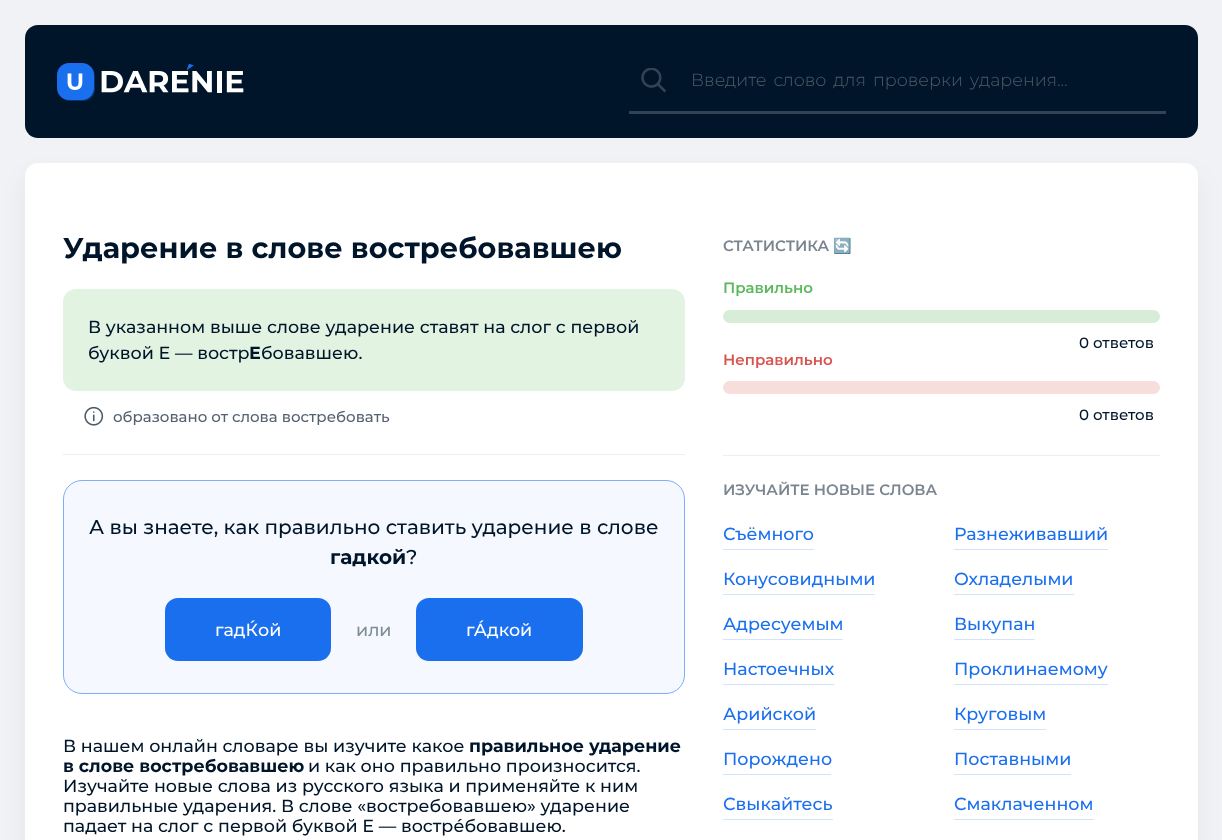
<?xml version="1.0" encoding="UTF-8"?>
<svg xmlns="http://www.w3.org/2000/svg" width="1222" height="840">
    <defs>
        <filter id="blur1" x="-50%" y="-200%" width="200%" height="500%"><feGaussianBlur stdDeviation="12.5"/></filter>
    </defs>
    <rect width="100%" height="100%" fill="#F0F2F5"/>
    <rect x="25" y="25" width="1173" height="113" rx="13" fill="#001529"/>
    <image x="57" y="63" width="187" height="38" href="img_01.png"/>
    <rect x="629" y="111" width="537" height="3" fill="#324353"/>
    <image x="641" y="68" width="25" height="25" href="img_02.png"/>
    <text x="691" y="86" word-spacing="2.5" font-family="Montserrat" font-size="17.5" font-weight="300" fill="#4D5B69">Введите слово для проверки ударения...</text>
    <rect x="25" y="175" width="1173" height="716" rx="13" fill="#233647" fill-opacity="0.05" filter="url(#blur1)"/>
    <rect x="25" y="163" width="1173" height="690" rx="13" fill="#FFFFFF"/>
    <text x="63" y="258" font-family="Montserrat" font-size="28.75" font-weight="700" fill="#001529">Ударение в слове востребовавшею</text>
    <rect x="63" y="289" width="622" height="102" rx="13" fill="#E2F3E2"/>
    <text font-family="Montserrat" font-size="17.5" font-weight="500" fill="#001529">
        <tspan x="88" y="333">В указанном выше слове ударение ставят на слог с первой</tspan>
        <tspan x="88" y="359">буквой Е — востр</tspan>
    </text>
    <text x="249" y="359" font-family="Montserrat" font-size="17.5" font-weight="700" fill="#001529">Е</text>
    <text x="261" y="359" font-family="Montserrat" font-size="17.5" font-weight="500" fill="#001529">бовавшею.</text>
    <image x="84" y="406" width="20" height="20" href="img_03.png"/>
    <text x="113" y="422" font-family="Montserrat" font-size="15" font-weight="500" fill="#546270">образовано от слова востребовать</text>
    <rect x="63" y="454" width="622" height="1" fill="#EEEEEE"/>
    <rect x="63" y="480" width="622" height="214" rx="19" fill="#F5F9FF"/>
    <rect x="63.5" y="480.5" width="621" height="213" rx="18.5" fill="none" stroke="#1A6FEF" stroke-opacity="0.54"/>
    <text x="89" y="534" font-family="Montserrat" font-size="20" font-weight="500" fill="#001529">А вы знаете, как правильно ставить ударение в слове</text>
    <text x="330" y="564" font-family="Montserrat" font-size="20" font-weight="700" fill="#001529">гадкой</text>
    <text x="406" y="564" font-family="Montserrat" font-size="20" font-weight="500" fill="#001529">?</text>
    <rect x="165" y="598" width="166" height="63" rx="13" fill="#1A6FEF"/>
    <text x="215" y="636" font-family="Montserrat" font-size="17.5" font-weight="500" fill="#FFFFFF">гадЌой</text>
    <text x="356" y="636" font-family="Montserrat" font-size="17.5" font-weight="500" fill="#7F8C98">или</text>
    <rect x="416" y="598" width="167" height="63" rx="13" fill="#1A6FEF"/>
    <text x="466" y="636" font-family="Montserrat" font-size="17.5" font-weight="500" fill="#FFFFFF">гА́дкой</text>
    <text x="63" y="752" font-family="Montserrat" font-size="17.5" font-weight="500" fill="#001529">В нашем онлайн словаре вы изучите какое</text>
    <text x="469" y="752" font-family="Montserrat" font-size="17.5" font-weight="700" fill="#001529">правильное ударение</text>
    <text x="63" y="772" font-family="Montserrat" font-size="17.5" font-weight="700" fill="#001529">в слове востребовавшею</text>
    <text x="308" y="772" font-family="Montserrat" font-size="17.5" font-weight="500" fill="#001529">и как оно правильно произносится.</text>
    <text font-family="Montserrat" font-size="17.5" font-weight="500" fill="#001529">
        <tspan x="63" y="792">Изучайте новые слова из русского языка и применяйте к ним</tspan>
        <tspan x="63" y="812">правильные ударения. В слове «востребовавшею» ударение</tspan>
        <tspan x="63" y="832">падает на слог с первой буквой Е — востре́бовавшею.</tspan>
    </text>
    <text x="723" y="251" font-family="Montserrat" font-size="15" font-weight="600" fill="#7A8590">СТАТИСТИКА</text>
    <text x="833" y="251" font-family="Noto Color Emoji" font-size="15" font-weight="700" fill="#1A6FEF">🔄</text>
    <text x="723" y="293" font-family="Montserrat" font-size="15" font-weight="600" fill="#5CB85C">Правильно</text>
    <rect x="723" y="310" width="437" height="13" rx="6.5" fill="#D7EDD7"/>
    <text x="1079" y="348" font-family="Montserrat" font-size="15" font-weight="500" fill="#001529">0 ответов</text>
    <text x="723" y="365" font-family="Montserrat" font-size="15" font-weight="600" fill="#D9534F">Неправильно</text>
    <rect x="723" y="381" width="437" height="13" rx="6.5" fill="#F8DDDD"/>
    <text x="1079" y="420" font-family="Montserrat" font-size="15" font-weight="500" fill="#001529">0 ответов</text>
    <rect x="723" y="455" width="437" height="1" fill="#EEEEEE"/>
    <text x="723" y="495" font-family="Montserrat" font-size="15" font-weight="600" fill="#7A8590">ИЗУЧАЙТЕ НОВЫЕ СЛОВА</text>
    <text x="723" y="540" font-family="Montserrat" font-size="17.5" font-weight="500" fill="#1A6FEF">Съёмного</text>
    <rect x="723" y="549" width="91" height="1" fill="#D3E3FC"/>
    <text x="954" y="540" font-family="Montserrat" font-size="17.5" font-weight="500" fill="#1A6FEF">Разнеживавший</text>
    <rect x="954" y="549" width="154" height="1" fill="#D3E3FC"/>
    <text x="723" y="585" font-family="Montserrat" font-size="17.5" font-weight="500" fill="#1A6FEF">Конусовидными</text>
    <rect x="723" y="594" width="152" height="1" fill="#D3E3FC"/>
    <text x="954" y="585" font-family="Montserrat" font-size="17.5" font-weight="500" fill="#1A6FEF">Охладелыми</text>
    <rect x="954" y="594" width="120" height="1" fill="#D3E3FC"/>
    <text x="723" y="630" font-family="Montserrat" font-size="17.5" font-weight="500" fill="#1A6FEF">Адресуемым</text>
    <rect x="723" y="639" width="120" height="1" fill="#D3E3FC"/>
    <text x="954" y="630" font-family="Montserrat" font-size="17.5" font-weight="500" fill="#1A6FEF">Выкупан</text>
    <rect x="954" y="639" width="81" height="1" fill="#D3E3FC"/>
    <text x="723" y="675" font-family="Montserrat" font-size="17.5" font-weight="500" fill="#1A6FEF">Настоечных</text>
    <rect x="723" y="684" width="111" height="1" fill="#D3E3FC"/>
    <text x="954" y="675" font-family="Montserrat" font-size="17.5" font-weight="500" fill="#1A6FEF">Проклинаемому</text>
    <rect x="954" y="684" width="154" height="1" fill="#D3E3FC"/>
    <text x="723" y="720" font-family="Montserrat" font-size="17.5" font-weight="500" fill="#1A6FEF">Арийской</text>
    <rect x="723" y="729" width="93" height="1" fill="#D3E3FC"/>
    <text x="954" y="720" font-family="Montserrat" font-size="17.5" font-weight="500" fill="#1A6FEF">Круговым</text>
    <rect x="954" y="729" width="92" height="1" fill="#D3E3FC"/>
    <text x="723" y="765" font-family="Montserrat" font-size="17.5" font-weight="500" fill="#1A6FEF">Порождено</text>
    <rect x="723" y="774" width="108" height="1" fill="#D3E3FC"/>
    <text x="954" y="765" font-family="Montserrat" font-size="17.5" font-weight="500" fill="#1A6FEF">Поставными</text>
    <rect x="954" y="774" width="117" height="1" fill="#D3E3FC"/>
    <text x="723" y="810" font-family="Montserrat" font-size="17.5" font-weight="500" fill="#1A6FEF">Свыкайтесь</text>
    <rect x="723" y="819" width="110" height="1" fill="#D3E3FC"/>
    <text x="954" y="810" font-family="Montserrat" font-size="17.5" font-weight="500" fill="#1A6FEF">Смаклаченном</text>
    <rect x="954" y="819" width="140" height="1" fill="#D3E3FC"/>
</svg>
